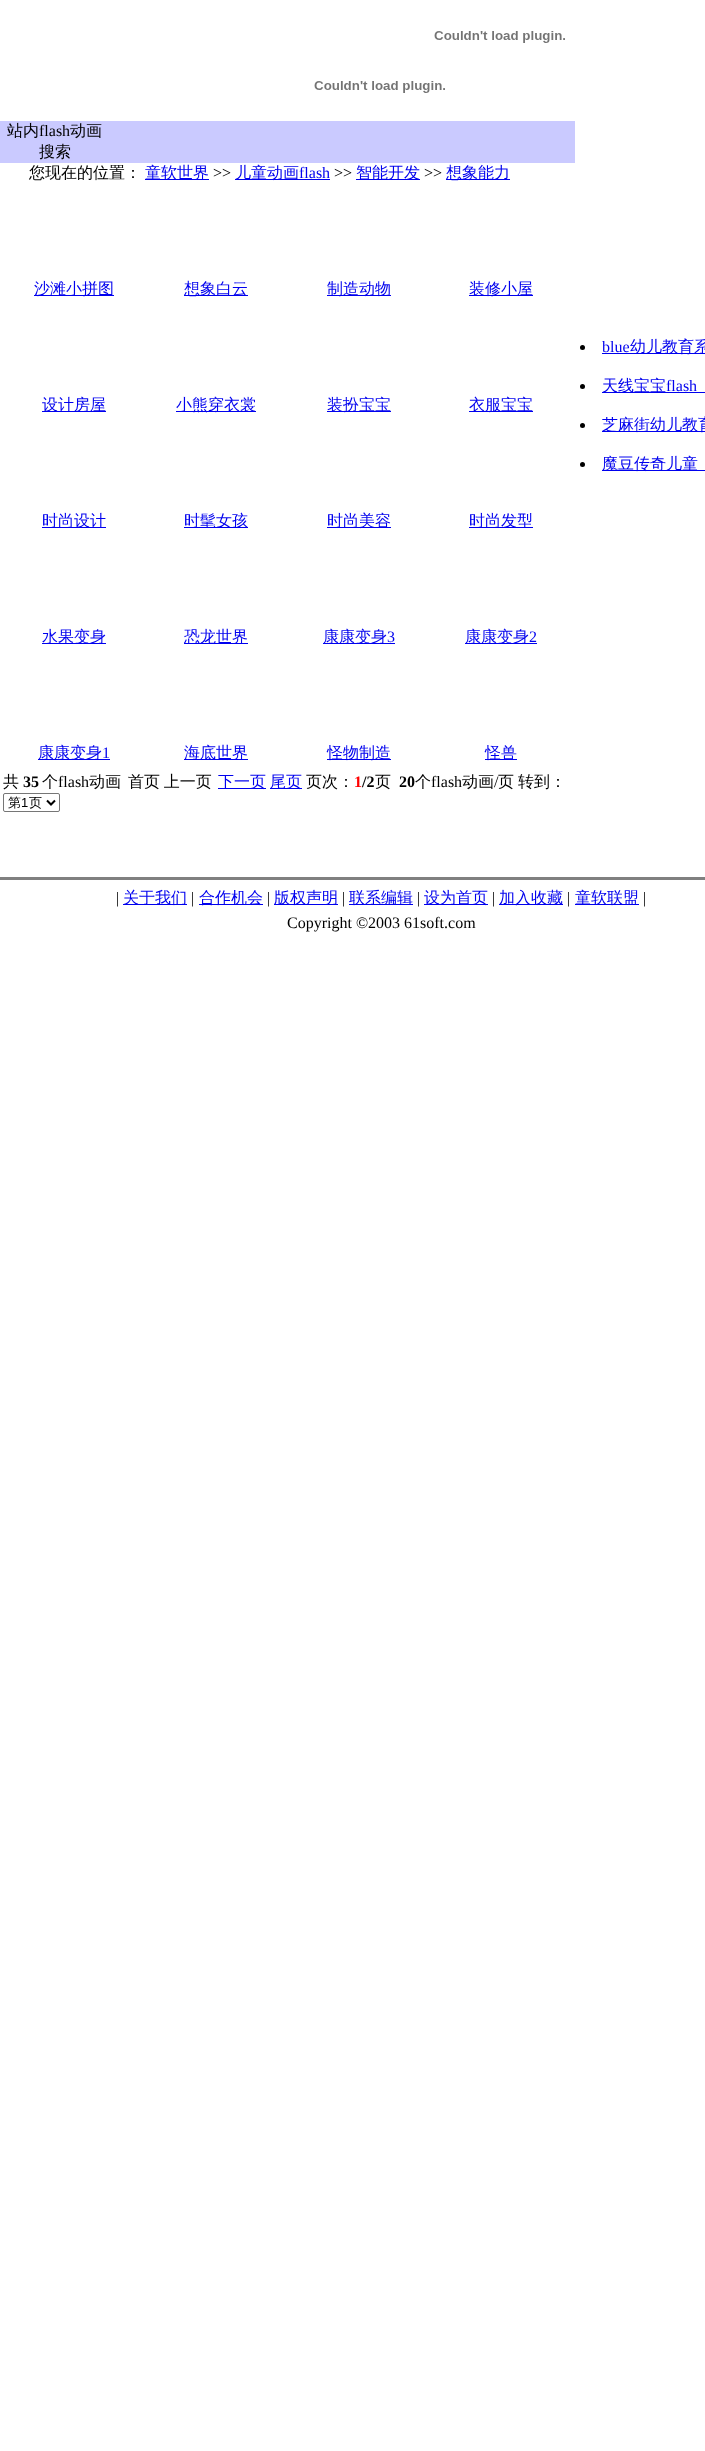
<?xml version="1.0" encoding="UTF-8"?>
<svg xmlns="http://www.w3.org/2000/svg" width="705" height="2451">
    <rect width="100%" height="100%" fill="#FFFFFF"/>
    <image x="434" y="31" width="131" height="12" href="img_01.png"/>
    <image x="314" y="81" width="131" height="12" href="img_01.png"/>
    <rect x="0" y="121" width="575" height="42" fill="#CACAFF"/>
    <text x="7" y="136" font-family="WenQuanYi Zen Hei" font-size="16" font-weight="500" fill="#000000">站内</text>
    <text x="39" y="136" font-family="Liberation Serif" font-size="16" fill="#000000">flash</text>
    <text x="70" y="136" font-family="WenQuanYi Zen Hei" font-size="16" font-weight="500" fill="#000000">动画</text>
    <text x="39" y="157" font-family="WenQuanYi Zen Hei" font-size="16" font-weight="500" fill="#000000">搜索</text>
    <text x="29" y="178" font-family="WenQuanYi Zen Hei" font-size="16" font-weight="500" fill="#000000">您现在的位置：</text>
    <rect x="145" y="179" width="64" height="1" fill="#0000EE"/>
    <text x="145" y="178" font-family="WenQuanYi Zen Hei" font-size="16" font-weight="500" fill="#0000EE">童软世界</text>
    <text x="213" y="178" font-family="Liberation Serif" font-size="16" fill="#000000">&gt;&gt;</text>
    <rect x="235" y="179" width="95" height="1" fill="#0000EE"/>
    <text x="235" y="178" font-family="WenQuanYi Zen Hei" font-size="16" font-weight="500" fill="#0000EE">儿童动画</text>
    <text x="299" y="178" font-family="Liberation Serif" font-size="16" fill="#0000EE">flash</text>
    <text x="334" y="178" font-family="Liberation Serif" font-size="16" fill="#000000">&gt;&gt;</text>
    <rect x="356" y="179" width="64" height="1" fill="#0000EE"/>
    <text x="356" y="178" font-family="WenQuanYi Zen Hei" font-size="16" font-weight="500" fill="#0000EE">智能开发</text>
    <text x="424" y="178" font-family="Liberation Serif" font-size="16" fill="#000000">&gt;&gt;</text>
    <rect x="446" y="179" width="64" height="1" fill="#0000EE"/>
    <text x="446" y="178" font-family="WenQuanYi Zen Hei" font-size="16" font-weight="500" fill="#0000EE">想象能力</text>
    <rect x="34" y="295" width="80" height="1" fill="#0000EE"/>
    <text x="34" y="294" font-family="WenQuanYi Zen Hei" font-size="16" font-weight="500" fill="#0000EE">沙滩小拼图</text>
    <rect x="184" y="295" width="64" height="1" fill="#0000EE"/>
    <text x="184" y="294" font-family="WenQuanYi Zen Hei" font-size="16" font-weight="500" fill="#0000EE">想象白云</text>
    <rect x="327" y="295" width="64" height="1" fill="#0000EE"/>
    <text x="327" y="294" font-family="WenQuanYi Zen Hei" font-size="16" font-weight="500" fill="#0000EE">制造动物</text>
    <rect x="469" y="295" width="64" height="1" fill="#0000EE"/>
    <text x="469" y="294" font-family="WenQuanYi Zen Hei" font-size="16" font-weight="500" fill="#0000EE">装修小屋</text>
    <rect x="42" y="411" width="64" height="1" fill="#0000EE"/>
    <text x="42" y="410" font-family="WenQuanYi Zen Hei" font-size="16" font-weight="500" fill="#0000EE">设计房屋</text>
    <rect x="176" y="411" width="80" height="1" fill="#0000EE"/>
    <text x="176" y="410" font-family="WenQuanYi Zen Hei" font-size="16" font-weight="500" fill="#0000EE">小熊穿衣裳</text>
    <rect x="327" y="411" width="64" height="1" fill="#0000EE"/>
    <text x="327" y="410" font-family="WenQuanYi Zen Hei" font-size="16" font-weight="500" fill="#0000EE">装扮宝宝</text>
    <rect x="469" y="411" width="64" height="1" fill="#0000EE"/>
    <text x="469" y="410" font-family="WenQuanYi Zen Hei" font-size="16" font-weight="500" fill="#0000EE">衣服宝宝</text>
    <rect x="42" y="527" width="64" height="1" fill="#0000EE"/>
    <text x="42" y="526" font-family="WenQuanYi Zen Hei" font-size="16" font-weight="500" fill="#0000EE">时尚设计</text>
    <rect x="184" y="527" width="64" height="1" fill="#0000EE"/>
    <text x="184" y="526" font-family="WenQuanYi Zen Hei" font-size="16" font-weight="500" fill="#0000EE">时髦女孩</text>
    <rect x="327" y="527" width="64" height="1" fill="#0000EE"/>
    <text x="327" y="526" font-family="WenQuanYi Zen Hei" font-size="16" font-weight="500" fill="#0000EE">时尚美容</text>
    <rect x="469" y="527" width="64" height="1" fill="#0000EE"/>
    <text x="469" y="526" font-family="WenQuanYi Zen Hei" font-size="16" font-weight="500" fill="#0000EE">时尚发型</text>
    <rect x="42" y="643" width="64" height="1" fill="#0000EE"/>
    <text x="42" y="642" font-family="WenQuanYi Zen Hei" font-size="16" font-weight="500" fill="#0000EE">水果变身</text>
    <rect x="184" y="643" width="64" height="1" fill="#0000EE"/>
    <text x="184" y="642" font-family="WenQuanYi Zen Hei" font-size="16" font-weight="500" fill="#0000EE">恐龙世界</text>
    <rect x="323" y="643" width="72" height="1" fill="#0000EE"/>
    <text x="323" y="642" font-family="WenQuanYi Zen Hei" font-size="16" font-weight="500" fill="#0000EE">康康变身</text>
    <text x="387" y="642" font-family="Liberation Serif" font-size="16" fill="#0000EE">3</text>
    <rect x="465" y="643" width="72" height="1" fill="#0000EE"/>
    <text x="465" y="642" font-family="WenQuanYi Zen Hei" font-size="16" font-weight="500" fill="#0000EE">康康变身</text>
    <text x="529" y="642" font-family="Liberation Serif" font-size="16" fill="#0000EE">2</text>
    <rect x="38" y="759" width="72" height="1" fill="#0000EE"/>
    <text x="38" y="758" font-family="WenQuanYi Zen Hei" font-size="16" font-weight="500" fill="#0000EE">康康变身</text>
    <text x="102" y="758" font-family="Liberation Serif" font-size="16" fill="#0000EE">1</text>
    <rect x="184" y="759" width="64" height="1" fill="#0000EE"/>
    <text x="184" y="758" font-family="WenQuanYi Zen Hei" font-size="16" font-weight="500" fill="#0000EE">海底世界</text>
    <rect x="327" y="759" width="64" height="1" fill="#0000EE"/>
    <text x="327" y="758" font-family="WenQuanYi Zen Hei" font-size="16" font-weight="500" fill="#0000EE">怪物制造</text>
    <rect x="485" y="759" width="32" height="1" fill="#0000EE"/>
    <text x="485" y="758" font-family="WenQuanYi Zen Hei" font-size="16" font-weight="500" fill="#0000EE">怪兽</text>
    <text x="3" y="787" font-family="WenQuanYi Zen Hei" font-size="16" font-weight="500" fill="#000000">共</text>
    <text x="23" y="787" font-family="Liberation Serif" font-size="16" font-weight="700" fill="#000000">35</text>
    <text x="42" y="787" font-family="WenQuanYi Zen Hei" font-size="16" font-weight="500" fill="#000000">个</text>
    <text x="58" y="787" font-family="Liberation Serif" font-size="16" fill="#000000">flash</text>
    <text x="89" y="787" font-family="WenQuanYi Zen Hei" font-size="16" font-weight="500" fill="#000000">动画</text>
    <text x="128" y="787" word-spacing="-1" font-family="WenQuanYi Zen Hei" font-size="16" font-weight="500" fill="#000000">首页 上一页</text>
    <rect x="218" y="788" width="48" height="1" fill="#0000EE"/>
    <text x="218" y="787" font-family="WenQuanYi Zen Hei" font-size="16" font-weight="500" fill="#0000EE">下一页</text>
    <rect x="270" y="788" width="32" height="1" fill="#0000EE"/>
    <text x="270" y="787" font-family="WenQuanYi Zen Hei" font-size="16" font-weight="500" fill="#0000EE">尾页</text>
    <text x="306" y="787" font-family="WenQuanYi Zen Hei" font-size="16" font-weight="500" fill="#000000">页次：</text>
    <text x="354" y="787" font-family="Liberation Serif" font-size="16" font-weight="700" fill="#FF0000">1</text>
    <text x="362" y="787" font-family="Liberation Serif" font-size="16" font-weight="700" fill="#000000">/2</text>
    <text x="375" y="787" font-family="WenQuanYi Zen Hei" font-size="16" font-weight="500" fill="#000000">页</text>
    <text x="399" y="787" font-family="Liberation Serif" font-size="16" font-weight="700" fill="#000000">20</text>
    <text x="415" y="787" font-family="WenQuanYi Zen Hei" font-size="16" font-weight="500" fill="#000000">个</text>
    <text x="431" y="787" font-family="Liberation Serif" font-size="16" fill="#000000">flash</text>
    <text x="462" y="787" font-family="WenQuanYi Zen Hei" font-size="16" font-weight="500" fill="#000000">动画</text>
    <text x="494" y="787" font-family="Liberation Serif" font-size="16" fill="#000000">/</text>
    <text x="498" y="787" font-family="WenQuanYi Zen Hei" font-size="16" font-weight="500" fill="#000000">页</text>
    <text x="518" y="787" font-family="WenQuanYi Zen Hei" font-size="16" font-weight="500" fill="#000000">转到：</text>
    <rect x="3.5" y="793.5" width="56" height="18" rx="1.5" fill="none" stroke="#767676"/>
    <path d="M 47 800.5 L 51 804.5 L 55 800.5" fill="none" stroke="#000000" stroke-width="2"/>
    <text x="8" y="807" font-family="WenQuanYi Zen Hei" font-size="13" font-weight="500" fill="#000000">第</text>
    <text x="21" y="807" font-family="Liberation Sans" font-size="13" fill="#000000">1</text>
    <text x="29" y="807" font-family="WenQuanYi Zen Hei" font-size="13" font-weight="500" fill="#000000">页</text>
    <circle cx="582.5" cy="347.5" r="2.5" fill="#000000"/>
    <text x="602" y="352" font-family="Liberation Serif" font-size="16" fill="#0000EE">blue</text>
    <rect x="602" y="353" width="103" height="1" fill="#0000EE"/>
    <text x="630" y="352" font-family="WenQuanYi Zen Hei" font-size="16" font-weight="500" fill="#0000EE">幼儿教育系</text>
    <circle cx="582.5" cy="386.5" r="2.5" fill="#000000"/>
    <rect x="602" y="392" width="103" height="1" fill="#0000EE"/>
    <text x="602" y="391" font-family="WenQuanYi Zen Hei" font-size="16" font-weight="500" fill="#0000EE">天线宝宝</text>
    <text x="666" y="391" font-family="Liberation Serif" font-size="16" fill="#0000EE">flash</text>
    <circle cx="582.5" cy="425.5" r="2.5" fill="#000000"/>
    <rect x="602" y="431" width="103" height="1" fill="#0000EE"/>
    <text x="602" y="430" font-family="WenQuanYi Zen Hei" font-size="16" font-weight="500" fill="#0000EE">芝麻街幼儿教育</text>
    <circle cx="582.5" cy="464.5" r="2.5" fill="#000000"/>
    <rect x="602" y="470" width="103" height="1" fill="#0000EE"/>
    <text x="602" y="469" font-family="WenQuanYi Zen Hei" font-size="16" font-weight="500" fill="#0000EE">魔豆传奇儿童</text>
    <rect x="0" y="877" width="705" height="3" fill="#808080"/>
    <text x="116" y="903" font-family="Liberation Serif" font-size="16" fill="#000000">|</text>
    <rect x="123" y="904" width="64" height="1" fill="#0000EE"/>
    <text x="123" y="903" font-family="WenQuanYi Zen Hei" font-size="16" font-weight="500" fill="#0000EE">关于我们</text>
    <text x="191" y="903" font-family="Liberation Serif" font-size="16" fill="#000000">|</text>
    <rect x="199" y="904" width="64" height="1" fill="#0000EE"/>
    <text x="199" y="903" font-family="WenQuanYi Zen Hei" font-size="16" font-weight="500" fill="#0000EE">合作机会</text>
    <text x="267" y="903" font-family="Liberation Serif" font-size="16" fill="#000000">|</text>
    <rect x="274" y="904" width="64" height="1" fill="#0000EE"/>
    <text x="274" y="903" font-family="WenQuanYi Zen Hei" font-size="16" font-weight="500" fill="#0000EE">版权声明</text>
    <text x="342" y="903" font-family="Liberation Serif" font-size="16" fill="#000000">|</text>
    <rect x="349" y="904" width="64" height="1" fill="#0000EE"/>
    <text x="349" y="903" font-family="WenQuanYi Zen Hei" font-size="16" font-weight="500" fill="#0000EE">联系编辑</text>
    <text x="417" y="903" font-family="Liberation Serif" font-size="16" fill="#000000">|</text>
    <rect x="424" y="904" width="64" height="1" fill="#0000EE"/>
    <text x="424" y="903" font-family="WenQuanYi Zen Hei" font-size="16" font-weight="500" fill="#0000EE">设为首页</text>
    <text x="492" y="903" font-family="Liberation Serif" font-size="16" fill="#000000">|</text>
    <rect x="499" y="904" width="64" height="1" fill="#0000EE"/>
    <text x="499" y="903" font-family="WenQuanYi Zen Hei" font-size="16" font-weight="500" fill="#0000EE">加入收藏</text>
    <text x="567" y="903" font-family="Liberation Serif" font-size="16" fill="#000000">|</text>
    <rect x="575" y="904" width="64" height="1" fill="#0000EE"/>
    <text x="575" y="903" font-family="WenQuanYi Zen Hei" font-size="16" font-weight="500" fill="#0000EE">童软联盟</text>
    <text x="643" y="903" font-family="Liberation Serif" font-size="16" fill="#000000">|</text>
    <text x="287" y="928" font-family="Liberation Serif" font-size="16" fill="#000000">Copyright ©2003 61soft.com</text>
</svg>
